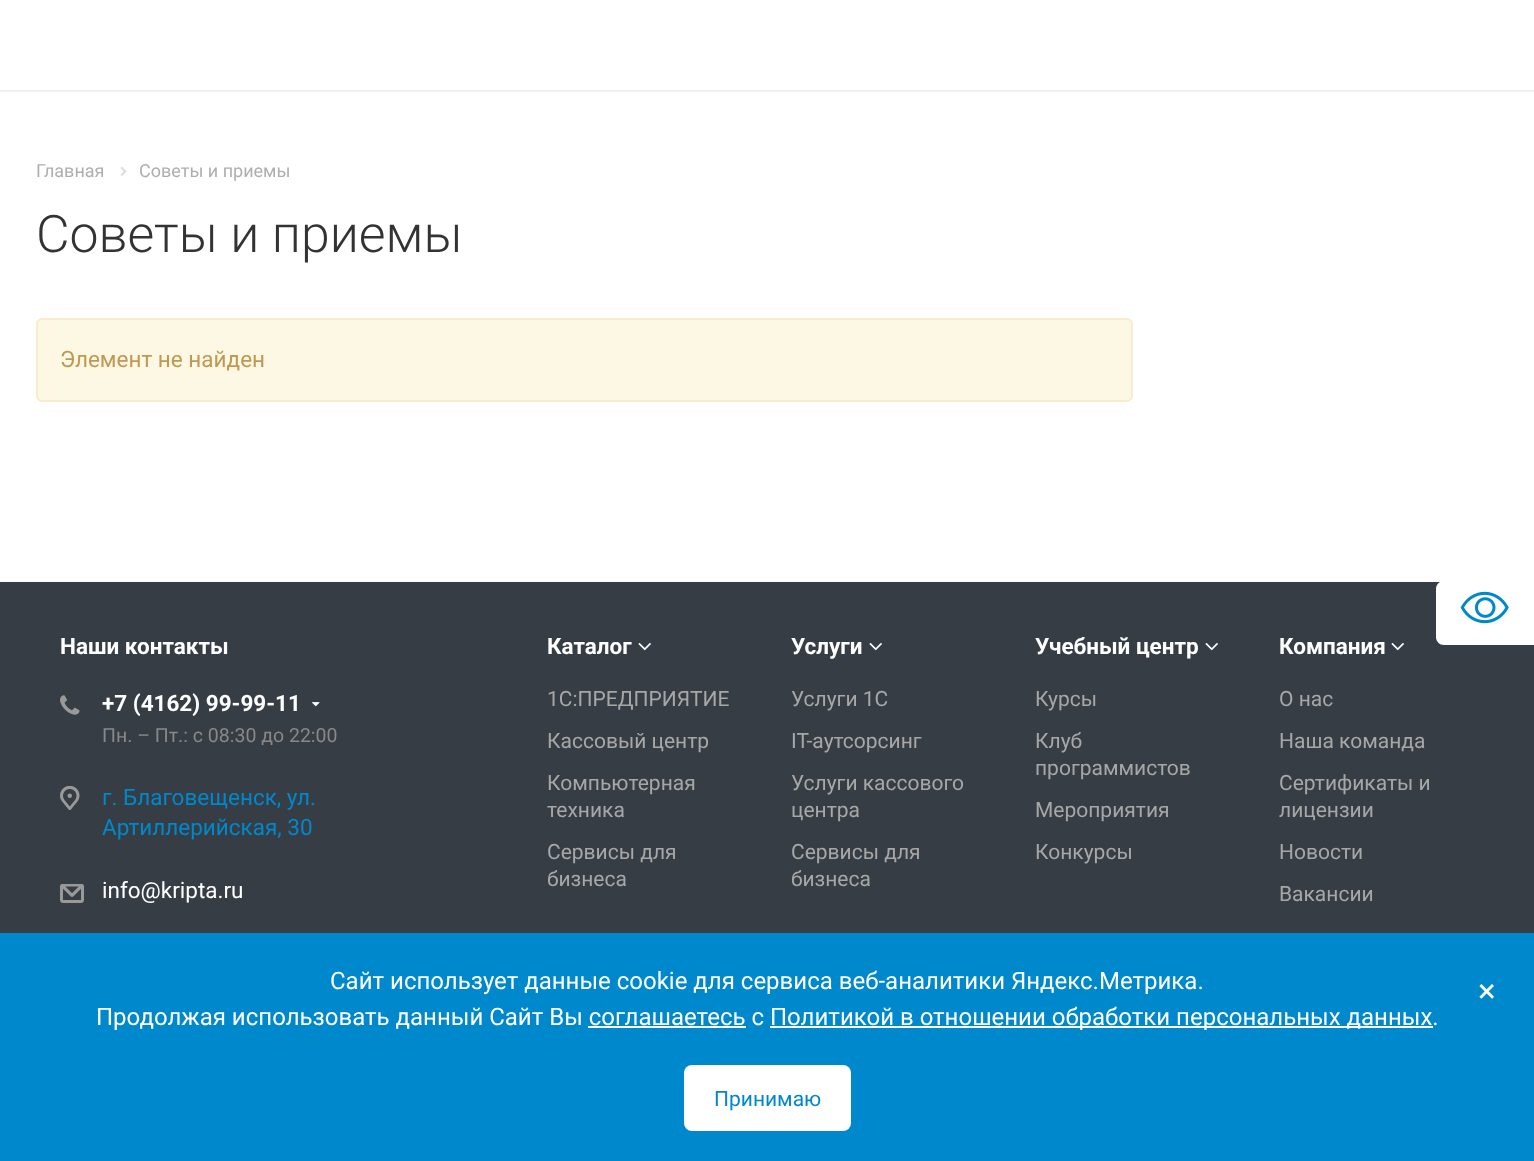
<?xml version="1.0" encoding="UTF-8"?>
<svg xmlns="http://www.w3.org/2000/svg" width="1534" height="1161">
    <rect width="100%" height="100%" fill="#FFFFFF"/>
    <rect x="0" y="90" width="1534" height="2" fill="#F0F0F0"/>
    <text x="36" y="177" font-family="Roboto" font-size="18" fill="#AEAEAE">Главная</text>
    <image x="120" y="166" width="7" height="10" href="img_01.png"/>
    <text x="139" y="177" font-family="Roboto" font-size="18" fill="#AEAEAE">Советы и приемы</text>
    <text x="36" y="252" font-family="Roboto" font-size="51.75" font-weight="300" fill="#333333">Советы и приемы</text>
    <rect x="37" y="319" width="1095" height="82" rx="5" fill="#FCF8E3" stroke="#FAEBCC" stroke-width="2"/>
    <text x="60" y="367" font-family="Roboto" font-size="22.5" fill="#C09853">Элемент не найден</text>
    <rect x="0" y="582" width="1534" height="351" fill="#373D44"/>
    <text x="60" y="654" font-family="Roboto" font-size="22.5" font-weight="700" fill="#FFFFFF">Наши контакты</text>
    <image x="60" y="695" width="20" height="20" href="img_02.png"/>
    <text x="102" y="711" font-family="Roboto" font-size="22.5" font-weight="700" fill="#FFFFFF">+7 (4162) 99-99-11</text>
    <image x="312" y="702" width="8" height="5" href="img_03.png"/>
    <text x="102" y="742" font-family="Roboto" font-size="19.5" fill="#888888">Пн. – Пт.: с 08:30 до 22:00</text>
    <image x="60" y="786" width="20" height="24" href="img_04.png"/>
    <text font-family="Roboto" font-size="22.5" fill="#0088CC">
        <tspan x="102" y="805">г. Благовещенск, ул.</tspan>
        <tspan x="102" y="835">Артиллерийская, 30</tspan>
    </text>
    <image x="60" y="884" width="24" height="19" href="img_05.png"/>
    <text x="102" y="898" font-family="Roboto" font-size="22.5" fill="#FFFFFF">info@kripta.ru</text>
    <text x="547" y="654" font-family="Roboto" font-size="22.5" font-weight="700" fill="#FFFFFF">Каталог</text>
    <image x="638" y="643" width="13" height="8" href="img_06.png"/>
    <text x="547" y="706" font-family="Roboto" font-size="21" fill="#A7A7A7">1С:ПРЕДПРИЯТИЕ</text>
    <text x="547" y="748" font-family="Roboto" font-size="21" fill="#A7A7A7">Кассовый центр</text>
    <text font-family="Roboto" font-size="21" fill="#A7A7A7">
        <tspan x="547" y="790">Компьютерная</tspan>
        <tspan x="547" y="817">техника</tspan>
    </text>
    <text font-family="Roboto" font-size="21" fill="#A7A7A7">
        <tspan x="547" y="859">Сервисы для</tspan>
        <tspan x="547" y="886">бизнеса</tspan>
    </text>
    <text x="791" y="654" font-family="Roboto" font-size="22.5" font-weight="700" fill="#FFFFFF">Услуги</text>
    <image x="869" y="643" width="13" height="8" href="img_06.png"/>
    <text x="791" y="706" font-family="Roboto" font-size="21" fill="#A7A7A7">Услуги 1С</text>
    <text x="791" y="748" font-family="Roboto" font-size="21" fill="#A7A7A7">IT-аутсорсинг</text>
    <text font-family="Roboto" font-size="21" fill="#A7A7A7">
        <tspan x="791" y="790">Услуги кассового</tspan>
        <tspan x="791" y="817">центра</tspan>
    </text>
    <text font-family="Roboto" font-size="21" fill="#A7A7A7">
        <tspan x="791" y="859">Сервисы для</tspan>
        <tspan x="791" y="886">бизнеса</tspan>
    </text>
    <text x="1035" y="654" font-family="Roboto" font-size="22.5" font-weight="700" fill="#FFFFFF">Учебный центр</text>
    <image x="1205" y="643" width="13" height="8" href="img_06.png"/>
    <text x="1035" y="706" font-family="Roboto" font-size="21" fill="#A7A7A7">Курсы</text>
    <text font-family="Roboto" font-size="21" fill="#A7A7A7">
        <tspan x="1035" y="748">Клуб</tspan>
        <tspan x="1035" y="775">программистов</tspan>
    </text>
    <text x="1035" y="817" font-family="Roboto" font-size="21" fill="#A7A7A7">Мероприятия</text>
    <text x="1035" y="859" font-family="Roboto" font-size="21" fill="#A7A7A7">Конкурсы</text>
    <text x="1279" y="654" font-family="Roboto" font-size="22.5" font-weight="700" fill="#FFFFFF">Компания</text>
    <image x="1391" y="643" width="13" height="8" href="img_06.png"/>
    <text x="1279" y="706" font-family="Roboto" font-size="21" fill="#A7A7A7">О нас</text>
    <text x="1279" y="748" font-family="Roboto" font-size="21" fill="#A7A7A7">Наша команда</text>
    <text font-family="Roboto" font-size="21" fill="#A7A7A7">
        <tspan x="1279" y="790">Сертификаты и</tspan>
        <tspan x="1279" y="817">лицензии</tspan>
    </text>
    <text x="1279" y="859" font-family="Roboto" font-size="21" fill="#A7A7A7">Новости</text>
    <text x="1279" y="901" font-family="Roboto" font-size="21" fill="#A7A7A7">Вакансии</text>
    <path d="M 1444 581 H 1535 V 645 H 1444 C 1439.5 645 1436 641.5 1436 637 V 589 C 1436 584.5 1439.5 581 1444 581 Z" fill="#FFFFFF"/>
    <image x="1460" y="591" width="49" height="33" href="img_07.png"/>
    <rect x="0" y="933" width="1534" height="228" fill="#0088CC"/>
    <text x="330" y="989" font-family="Roboto" font-size="24" fill="#FFFFFF">Сайт использует данные cookie для сервиса веб-аналитики Яндекс.Метрика.</text>
    <text x="96" y="1025" font-family="Roboto" font-size="24" fill="#FFFFFF">Продолжая использовать данный Сайт Вы соглашаетесь с</text>
    <rect x="770" y="1026" width="663" height="2" fill="#FFFFFF"/>
    <text x="770" y="1025" font-family="Roboto" font-size="24" fill="#FFFFFF">Политикой в отношении обработки персональных данных.</text>
    <rect x="588" y="1026" width="158" height="2" fill="#FFFFFF"/>
    <text x="1478" y="1002" font-family="Roboto" font-size="33" fill="#FFFFFF">×</text>
    <rect x="684" y="1065" width="167" height="66" rx="8" fill="#FFFFFF"/>
    <text x="714" y="1106" font-family="Roboto" font-size="21" fill="#0088CC">Принимаю</text>
</svg>
